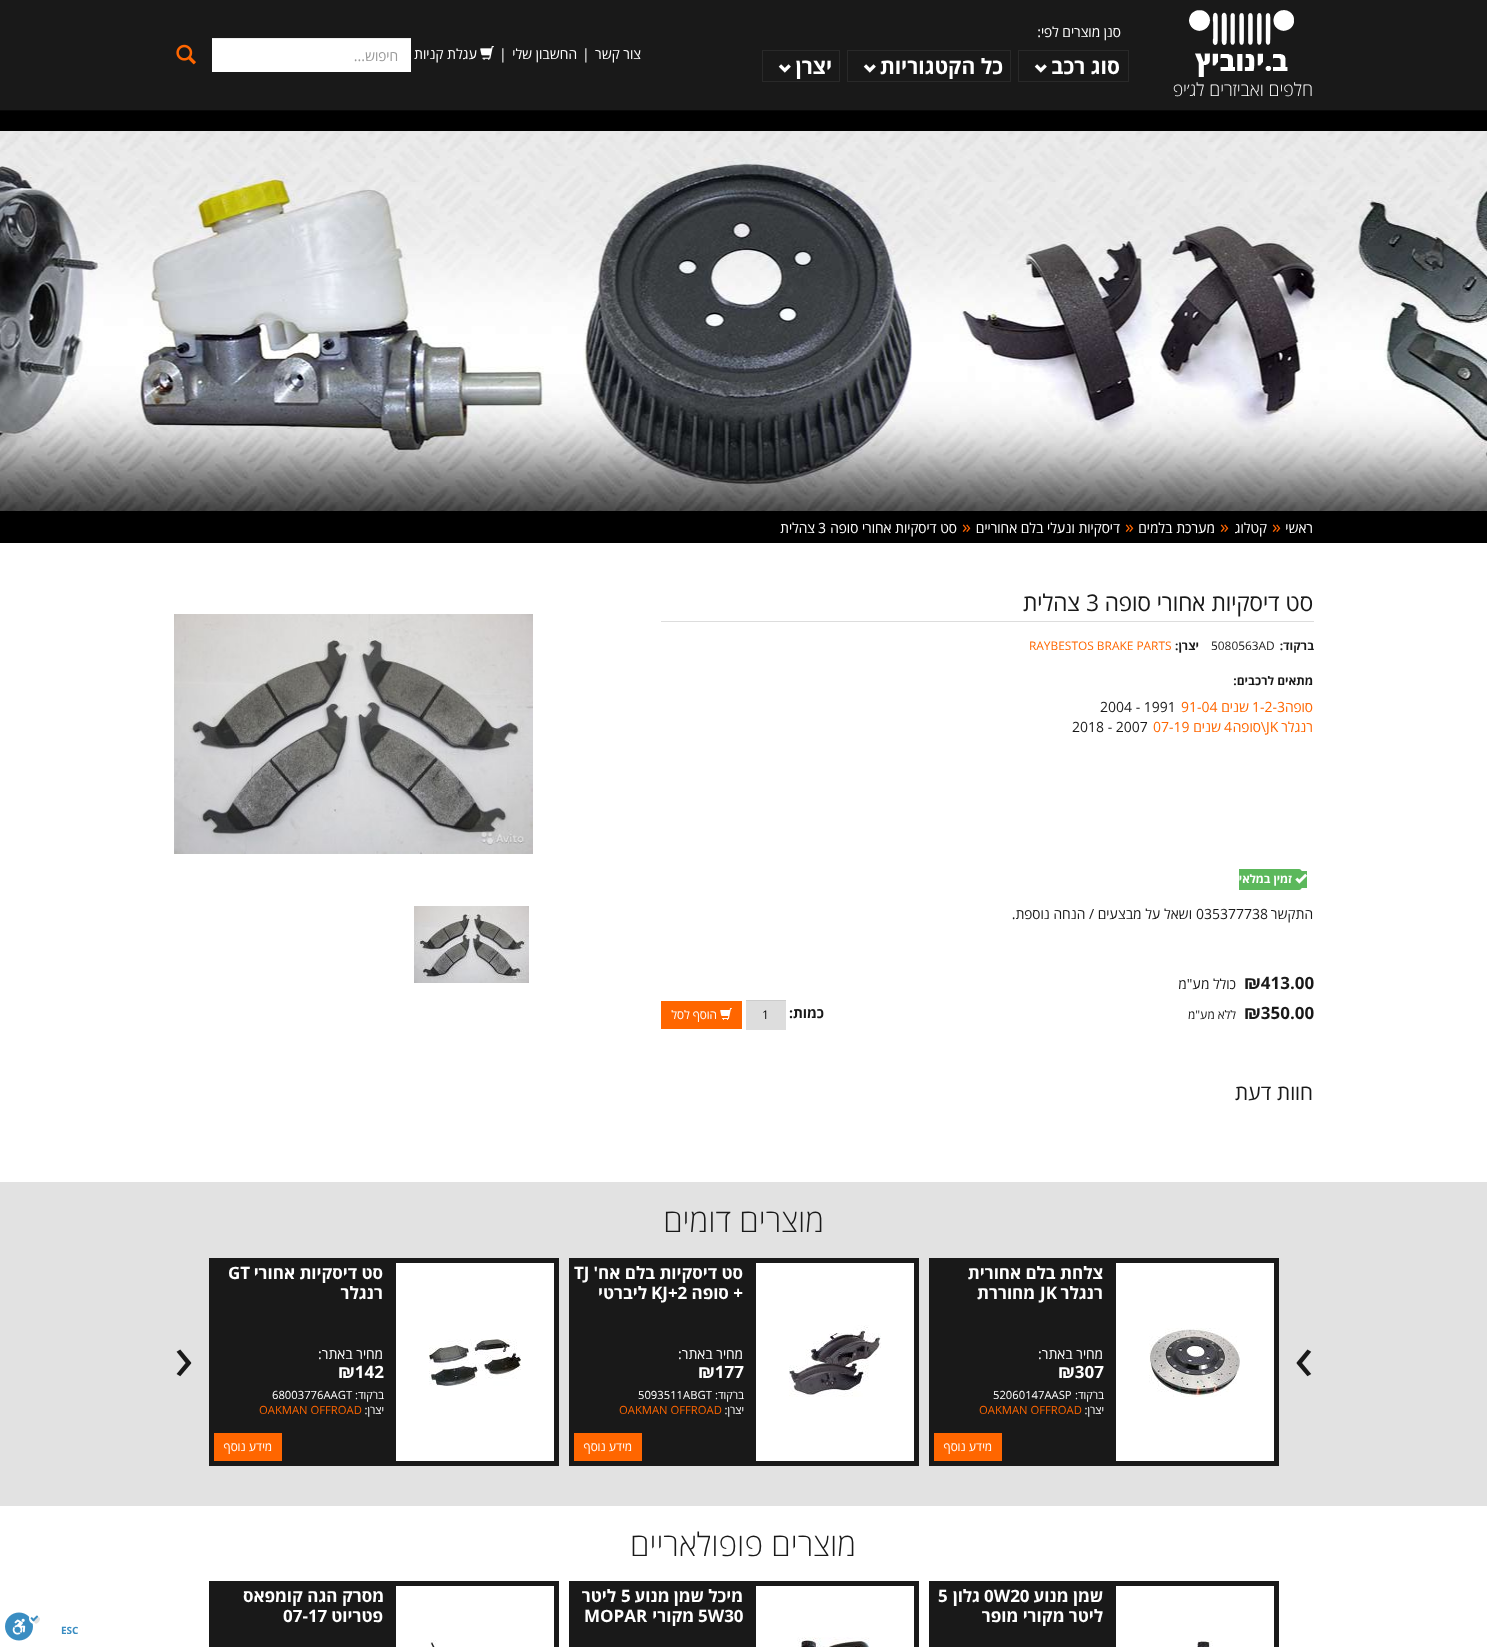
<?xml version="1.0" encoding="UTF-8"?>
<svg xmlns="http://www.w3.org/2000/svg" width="1487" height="1647">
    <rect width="100%" height="100%" fill="#000000"/>
    <rect x="0" y="0" width="1487" height="110" fill="#191919"/>
    <text x="1121" y="37" font-family="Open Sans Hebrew" font-size="14" direction="rtl" fill="#FFFFFF">סנן מוצרים לפי:</text>
    <rect x="1018.5" y="50.5" width="110" height="31" fill="none" stroke="#292929"/>
    <text x="1120" y="74" font-family="Open Sans Hebrew" font-size="21" font-weight="700" direction="rtl" fill="#FFFFFF">סוג רכב</text>
    <image x="1034" y="64" width="13" height="9" href="img_01.png"/>
    <rect x="847.5" y="50.5" width="163" height="31" fill="none" stroke="#292929"/>
    <text x="1003" y="74" font-family="Open Sans Hebrew" font-size="21" font-weight="700" direction="rtl" fill="#FFFFFF">כל הקטגוריות</text>
    <image x="863" y="64" width="13" height="9" href="img_01.png"/>
    <rect x="762.5" y="50.5" width="77" height="31" fill="none" stroke="#292929"/>
    <text x="832" y="74" font-family="Open Sans Hebrew" font-size="21" font-weight="700" direction="rtl" fill="#FFFFFF">יצרן</text>
    <image x="778" y="64" width="13" height="9" href="img_01.png"/>
    <rect x="0" y="110" width="1487" height="1" fill="#080808"/>
    <text x="641" y="59" font-family="Open Sans Hebrew" font-size="14" direction="rtl" fill="#FFFFFF">צור קשר</text>
    <text x="582" y="59" font-family="Open Sans Hebrew" font-size="14" fill="#FFFFFF">|</text>
    <text x="577" y="59" font-family="Open Sans Hebrew" font-size="14" direction="rtl" fill="#FFFFFF">החשבון שלי</text>
    <text x="499" y="59" font-family="Open Sans Hebrew" font-size="14" fill="#FFFFFF">|</text>
    <image x="480" y="46" width="14" height="14" href="img_02.png"/>
    <text x="477" y="59" font-family="Open Sans Hebrew" font-size="14" direction="rtl" fill="#FFFFFF">עגלת קניות</text>
    <rect x="212" y="39" width="199" height="33" fill="#FFFFFF"/>
    <rect x="212" y="38" width="199" height="1" fill="#ECECEC"/>
    <text x="398" y="61" font-family="Open Sans Hebrew" font-size="14" direction="rtl" fill="#999999">חיפוש...</text>
    <image x="176" y="44" width="20" height="21" href="img_03.png"/>
    <image x="1189" y="10" width="105" height="67" href="img_04.png"/>
    <text x="1313" y="96" font-family="Open Sans Hebrew" font-size="18" font-weight="300" direction="rtl" fill="#FFFFFF">חלפים ואביזרים לג׳יפ</text>
    <image x="0" y="131" width="1487" height="380" href="img_05.png"/>
    <text x="1313" y="533" font-family="Open Sans Hebrew" font-size="14" direction="rtl" fill="#FFFFFF">ראשי</text>
    <text x="1272" y="533" font-family="Open Sans Hebrew" font-size="18" fill="#FF6600">»</text>
    <text x="1267" y="533" font-family="Open Sans Hebrew" font-size="14" direction="rtl" fill="#FFFFFF">קטלוג</text>
    <text x="1220" y="533" font-family="Open Sans Hebrew" font-size="18" fill="#FF6600">»</text>
    <text x="1215" y="533" font-family="Open Sans Hebrew" font-size="14" direction="rtl" fill="#FFFFFF">מערכת בלמים</text>
    <text x="1125" y="533" font-family="Open Sans Hebrew" font-size="18" fill="#FF6600">»</text>
    <text x="1120" y="533" font-family="Open Sans Hebrew" font-size="14" direction="rtl" fill="#FFFFFF">דיסקיות ונעלי בלם אחוריים</text>
    <text x="962" y="533" font-family="Open Sans Hebrew" font-size="18" fill="#FF6600">»</text>
    <text x="957" y="533" font-family="Open Sans Hebrew" font-size="14" direction="rtl" fill="#FFFFFF">סט דיסקיות אחורי סופה</text>
    <text x="818" y="533" font-family="Open Sans Hebrew" font-size="14" fill="#FFFFFF">3</text>
    <text x="815" y="533" font-family="Open Sans Hebrew" font-size="14" direction="rtl" fill="#FFFFFF">צהלית</text>
    <rect x="0" y="543" width="1487" height="639" fill="#FFFFFF"/>
    <rect x="661" y="621" width="653" height="1" fill="#DDDDDD"/>
    <text x="1313" y="611" font-family="Open Sans Hebrew" font-size="23" direction="rtl" fill="#191919">סט דיסקיות אחורי סופה</text>
    <text x="1086" y="611" font-family="Open Sans Hebrew" font-size="23" fill="#191919">3</text>
    <text x="1080" y="611" font-family="Open Sans Hebrew" font-size="23" direction="rtl" fill="#191919">צהלית</text>
    <text x="1314" y="650" font-family="Open Sans Hebrew" font-size="11.9" font-weight="700" direction="rtl" fill="#191919">ברקוד:</text>
    <text x="1211" y="650" font-family="Open Sans Hebrew" font-size="11.9" fill="#191919">5080563AD</text>
    <text x="1199" y="650" font-family="Open Sans Hebrew" font-size="11.9" font-weight="700" direction="rtl" fill="#191919">יצרן:</text>
    <text x="1029" y="650" font-family="Open Sans Hebrew" font-size="11.9" fill="#FF6600">RAYBESTOS BRAKE PARTS</text>
    <text x="1313" y="685" font-family="Open Sans Hebrew" font-size="12" font-weight="700" direction="rtl" fill="#191919">מתאים לרכבים:</text>
    <text x="1313" y="712" font-family="Open Sans Hebrew" font-size="14" direction="rtl" fill="#FF6600">סופה</text>
    <text x="1252" y="712" font-family="Open Sans Hebrew" font-size="14" fill="#FF6600">1-2-3</text>
    <text x="1249" y="712" font-family="Open Sans Hebrew" font-size="14" direction="rtl" fill="#FF6600">שנים</text>
    <text x="1181" y="712" font-family="Open Sans Hebrew" font-size="14" fill="#FF6600">91-04</text>
    <text x="1100" y="712" font-family="Open Sans Hebrew" font-size="14" fill="#191919">2004 - 1991</text>
    <text x="1313" y="732" font-family="Open Sans Hebrew" font-size="14" direction="rtl" fill="#FF6600">רנגלר</text>
    <text x="1266" y="732" font-family="Open Sans Hebrew" font-size="14" direction="rtl" fill="#FF6600">\סופה</text>
    <text x="1266" y="732" font-family="Open Sans Hebrew" font-size="14" fill="#FF6600">JK</text>
    <text x="1224" y="732" font-family="Open Sans Hebrew" font-size="14" fill="#FF6600">4</text>
    <text x="1221" y="732" font-family="Open Sans Hebrew" font-size="14" direction="rtl" fill="#FF6600">שנים</text>
    <text x="1153" y="732" font-family="Open Sans Hebrew" font-size="14" fill="#FF6600">07-19</text>
    <text x="1072" y="732" font-family="Open Sans Hebrew" font-size="14" fill="#191919">2018 - 2007</text>
    <rect x="1301" y="871" width="6" height="17" fill="#5CB85C"/>
    <path d="M 1239 869 H 1299 C 1300.5 869 1302 870.5 1302 872 V 887 C 1302 888.5 1300.5 890 1299 890 H 1239 Z" fill="#5CB85C"/>
    <image x="1295" y="873" width="12" height="11" href="img_06.png"/>
    <text x="1292" y="883" font-family="Open Sans Hebrew" font-size="11.5" font-weight="700" direction="rtl" fill="#FFFFFF">זמין במלאי</text>
    <text x="1313" y="919" font-family="Open Sans Hebrew" font-size="14" direction="rtl" fill="#191919">התקשר</text>
    <text x="1196" y="919" font-family="Open Sans Hebrew" font-size="14" fill="#191919">035377738</text>
    <text x="1192" y="919" font-family="Open Sans Hebrew" font-size="14" direction="rtl" fill="#191919">ושאל על מבצעים / הנחה נוספת.</text>
    <text x="1244" y="989" font-family="Open Sans Hebrew" font-size="17" font-weight="700" fill="#191919">₪413.00</text>
    <text x="1236" y="989" font-family="Open Sans Hebrew" font-size="14" direction="rtl" fill="#191919">כולל מע"מ</text>
    <text x="1244" y="1019" font-family="Open Sans Hebrew" font-size="17" font-weight="700" fill="#191919">₪350.00</text>
    <text x="1236" y="1019" font-family="Open Sans Hebrew" font-size="12" direction="rtl" fill="#191919">ללא מע"מ</text>
    <text x="824" y="1018" font-family="Open Sans Hebrew" font-size="14" font-weight="700" direction="rtl" fill="#191919">כמות:</text>
    <rect x="746" y="1001" width="40" height="29" fill="#DDDDDD"/>
    <rect x="746" y="1000" width="40" height="1" fill="#CCCCCC"/>
    <text x="762" y="1019" font-family="Open Sans Hebrew" font-size="12" fill="#000000">1</text>
    <rect x="661" y="1001" width="81" height="28" fill="#FF6600"/>
    <image x="720" y="1008" width="12" height="12" href="img_07.png"/>
    <text x="717" y="1019" font-family="Open Sans Hebrew" font-size="12" direction="rtl" fill="#FFFFFF">הוסף לסל</text>
    <image x="174" y="614" width="359" height="240" href="img_08.png"/>
    <image x="414" y="906" width="115" height="77" href="img_09.png"/>
    <text x="1313" y="1100" font-family="Open Sans Hebrew" font-size="21" direction="rtl" fill="#191919">חוות דעת</text>
    <rect x="0" y="1182" width="1487" height="324" fill="#E2E2E2"/>
    <text x="824" y="1232" font-family="Open Sans Hebrew" font-size="32" font-weight="300" direction="rtl" fill="#191919">מוצרים דומים</text>
    <text x="1294" y="1380" font-family="Open Sans Hebrew" font-size="65" fill="#191919">‹</text>
    <rect x="929" y="1258" width="350" height="208" fill="#191919"/>
    <rect x="1116" y="1263" width="158" height="198" fill="#FFFFFF"/>
    <image x="1149" y="1328" width="91" height="69" href="img_10.png"/>
    <text font-family="Open Sans Hebrew" font-size="17" font-weight="700" direction="rtl" fill="#FFFFFF">
        <tspan x="1103" y="1279">צלחת בלם אחורית</tspan>
        <tspan x="1103" y="1299">רנגלר</tspan>
    </text>
    <text x="1040" y="1299" font-family="Open Sans Hebrew" font-size="17" font-weight="700" fill="#FFFFFF">JK</text>
    <text x="1035" y="1299" font-family="Open Sans Hebrew" font-size="17" font-weight="700" direction="rtl" fill="#FFFFFF">מחוררת</text>
    <text x="1103" y="1359" font-family="Open Sans Hebrew" font-size="14" direction="rtl" fill="#FFFFFF">מחיר באתר:</text>
    <text x="1058" y="1378" font-family="Open Sans Hebrew" font-size="17" font-weight="700" fill="#FFFFFF">₪307</text>
    <text x="1104" y="1399" font-family="Open Sans Hebrew" font-size="11.25" direction="rtl" fill="#FFFFFF">ברקוד:</text>
    <text x="993" y="1399" font-family="Open Sans Hebrew" font-size="11.25" fill="#FFFFFF">52060147AASP</text>
    <text x="1104" y="1414" font-family="Open Sans Hebrew" font-size="11.25" direction="rtl" fill="#FFFFFF">יצרן:</text>
    <text x="979" y="1414" font-family="Open Sans Hebrew" font-size="11.25" fill="#FF6600">OAKMAN OFFROAD</text>
    <rect x="934" y="1433" width="68" height="28" fill="#FF6600"/>
    <text x="992" y="1451" font-family="Open Sans Hebrew" font-size="12" direction="rtl" fill="#FFFFFF">מידע נוסף</text>
    <rect x="569" y="1258" width="350" height="208" fill="#191919"/>
    <rect x="756" y="1263" width="158" height="198" fill="#FFFFFF"/>
    <image x="789" y="1325" width="92" height="72" href="img_11.png"/>
    <text x="743" y="1279" font-family="Open Sans Hebrew" font-size="17" font-weight="700" direction="rtl" fill="#FFFFFF">סט דיסקיות בלם אח'</text>
    <text x="574" y="1279" font-family="Open Sans Hebrew" font-size="17" font-weight="700" fill="#FFFFFF">TJ</text>
    <text x="743" y="1299" font-family="Open Sans Hebrew" font-size="17" font-weight="700" direction="rtl" fill="#FFFFFF">+ סופה</text>
    <text x="651" y="1299" font-family="Open Sans Hebrew" font-size="17" font-weight="700" fill="#FFFFFF">KJ+2</text>
    <text x="647" y="1299" font-family="Open Sans Hebrew" font-size="17" font-weight="700" direction="rtl" fill="#FFFFFF">ליברטי</text>
    <text x="743" y="1359" font-family="Open Sans Hebrew" font-size="14" direction="rtl" fill="#FFFFFF">מחיר באתר:</text>
    <text x="698" y="1378" font-family="Open Sans Hebrew" font-size="17" font-weight="700" fill="#FFFFFF">₪177</text>
    <text x="744" y="1399" font-family="Open Sans Hebrew" font-size="11.25" direction="rtl" fill="#FFFFFF">ברקוד:</text>
    <text x="638" y="1399" font-family="Open Sans Hebrew" font-size="11.25" fill="#FFFFFF">5093511ABGT</text>
    <text x="744" y="1414" font-family="Open Sans Hebrew" font-size="11.25" direction="rtl" fill="#FFFFFF">יצרן:</text>
    <text x="619" y="1414" font-family="Open Sans Hebrew" font-size="11.25" fill="#FF6600">OAKMAN OFFROAD</text>
    <rect x="574" y="1433" width="68" height="28" fill="#FF6600"/>
    <text x="632" y="1451" font-family="Open Sans Hebrew" font-size="12" direction="rtl" fill="#FFFFFF">מידע נוסף</text>
    <rect x="209" y="1258" width="350" height="208" fill="#191919"/>
    <rect x="396" y="1263" width="158" height="198" fill="#FFFFFF"/>
    <image x="429" y="1339" width="92" height="47" href="img_12.png"/>
    <text x="383" y="1279" font-family="Open Sans Hebrew" font-size="17" font-weight="700" direction="rtl" fill="#FFFFFF">סט דיסקיות אחורי</text>
    <text x="228" y="1279" font-family="Open Sans Hebrew" font-size="17" font-weight="700" fill="#FFFFFF">GT</text>
    <text x="383" y="1299" font-family="Open Sans Hebrew" font-size="17" font-weight="700" direction="rtl" fill="#FFFFFF">רנגלר</text>
    <text x="383" y="1359" font-family="Open Sans Hebrew" font-size="14" direction="rtl" fill="#FFFFFF">מחיר באתר:</text>
    <text x="338" y="1378" font-family="Open Sans Hebrew" font-size="17" font-weight="700" fill="#FFFFFF">₪142</text>
    <text x="384" y="1399" font-family="Open Sans Hebrew" font-size="11.25" direction="rtl" fill="#FFFFFF">ברקוד:</text>
    <text x="272" y="1399" font-family="Open Sans Hebrew" font-size="11.25" fill="#FFFFFF">68003776AAGT</text>
    <text x="384" y="1414" font-family="Open Sans Hebrew" font-size="11.25" direction="rtl" fill="#FFFFFF">יצרן:</text>
    <text x="259" y="1414" font-family="Open Sans Hebrew" font-size="11.25" fill="#FF6600">OAKMAN OFFROAD</text>
    <rect x="214" y="1433" width="68" height="28" fill="#FF6600"/>
    <text x="272" y="1451" font-family="Open Sans Hebrew" font-size="12" direction="rtl" fill="#FFFFFF">מידע נוסף</text>
    <text x="174" y="1380" font-family="Open Sans Hebrew" font-size="65" fill="#191919">›</text>
    <rect x="0" y="1506" width="1487" height="141" fill="#FFFFFF"/>
    <text x="856" y="1556" font-family="Open Sans Hebrew" font-size="32" font-weight="300" direction="rtl" fill="#191919">מוצרים פופולאריים</text>
    <rect x="929" y="1581" width="350" height="66" fill="#191919"/>
    <rect x="1116" y="1586" width="158" height="61" fill="#FFFFFF"/>
    <image x="1197" y="1640" width="16" height="7" href="img_13.png"/>
    <text x="1103" y="1602" font-family="Open Sans Hebrew" font-size="17" font-weight="700" direction="rtl" fill="#FFFFFF">שמן מנוע</text>
    <text x="984" y="1602" font-family="Open Sans Hebrew" font-size="17" font-weight="700" fill="#FFFFFF">0W20</text>
    <text x="980" y="1602" font-family="Open Sans Hebrew" font-size="17" font-weight="700" direction="rtl" fill="#FFFFFF">גלון</text>
    <text x="938" y="1602" font-family="Open Sans Hebrew" font-size="17" font-weight="700" fill="#FFFFFF">5</text>
    <text x="1103" y="1622" font-family="Open Sans Hebrew" font-size="17" font-weight="700" direction="rtl" fill="#FFFFFF">ליטר מקורי מופר</text>
    <rect x="569" y="1581" width="350" height="66" fill="#191919"/>
    <rect x="756" y="1586" width="158" height="61" fill="#FFFFFF"/>
    <image x="797" y="1637" width="73" height="10" href="img_14.png"/>
    <text x="743" y="1602" font-family="Open Sans Hebrew" font-size="17" font-weight="700" direction="rtl" fill="#FFFFFF">מיכל שמן מנוע</text>
    <text x="621" y="1602" font-family="Open Sans Hebrew" font-size="17" font-weight="700" fill="#FFFFFF">5</text>
    <text x="616" y="1602" font-family="Open Sans Hebrew" font-size="17" font-weight="700" direction="rtl" fill="#FFFFFF">ליטר</text>
    <text x="698" y="1622" font-family="Open Sans Hebrew" font-size="17" font-weight="700" fill="#FFFFFF">5W30</text>
    <text x="694" y="1622" font-family="Open Sans Hebrew" font-size="17" font-weight="700" direction="rtl" fill="#FFFFFF">מקורי</text>
    <text x="584" y="1622" font-family="Open Sans Hebrew" font-size="17" font-weight="700" fill="#FFFFFF">MOPAR</text>
    <rect x="209" y="1581" width="350" height="66" fill="#191919"/>
    <rect x="396" y="1586" width="158" height="61" fill="#FFFFFF"/>
    <image x="430" y="1640" width="7" height="7" href="img_15.png"/>
    <text x="384" y="1602" font-family="Open Sans Hebrew" font-size="17" font-weight="700" direction="rtl" fill="#FFFFFF">מסרק הגה קומפאס</text>
    <text x="383" y="1622" font-family="Open Sans Hebrew" font-size="17" font-weight="700" direction="rtl" fill="#FFFFFF">פטריוט</text>
    <text x="283" y="1622" font-family="Open Sans Hebrew" font-size="17" font-weight="700" fill="#FFFFFF">07-17</text>
    <text x="61" y="1634" font-family="Open Sans Hebrew" font-size="10" font-weight="700" fill="#3A8DC2">ESC</text>
    <image x="5" y="1612" width="35" height="29" href="img_16.png"/>
</svg>
